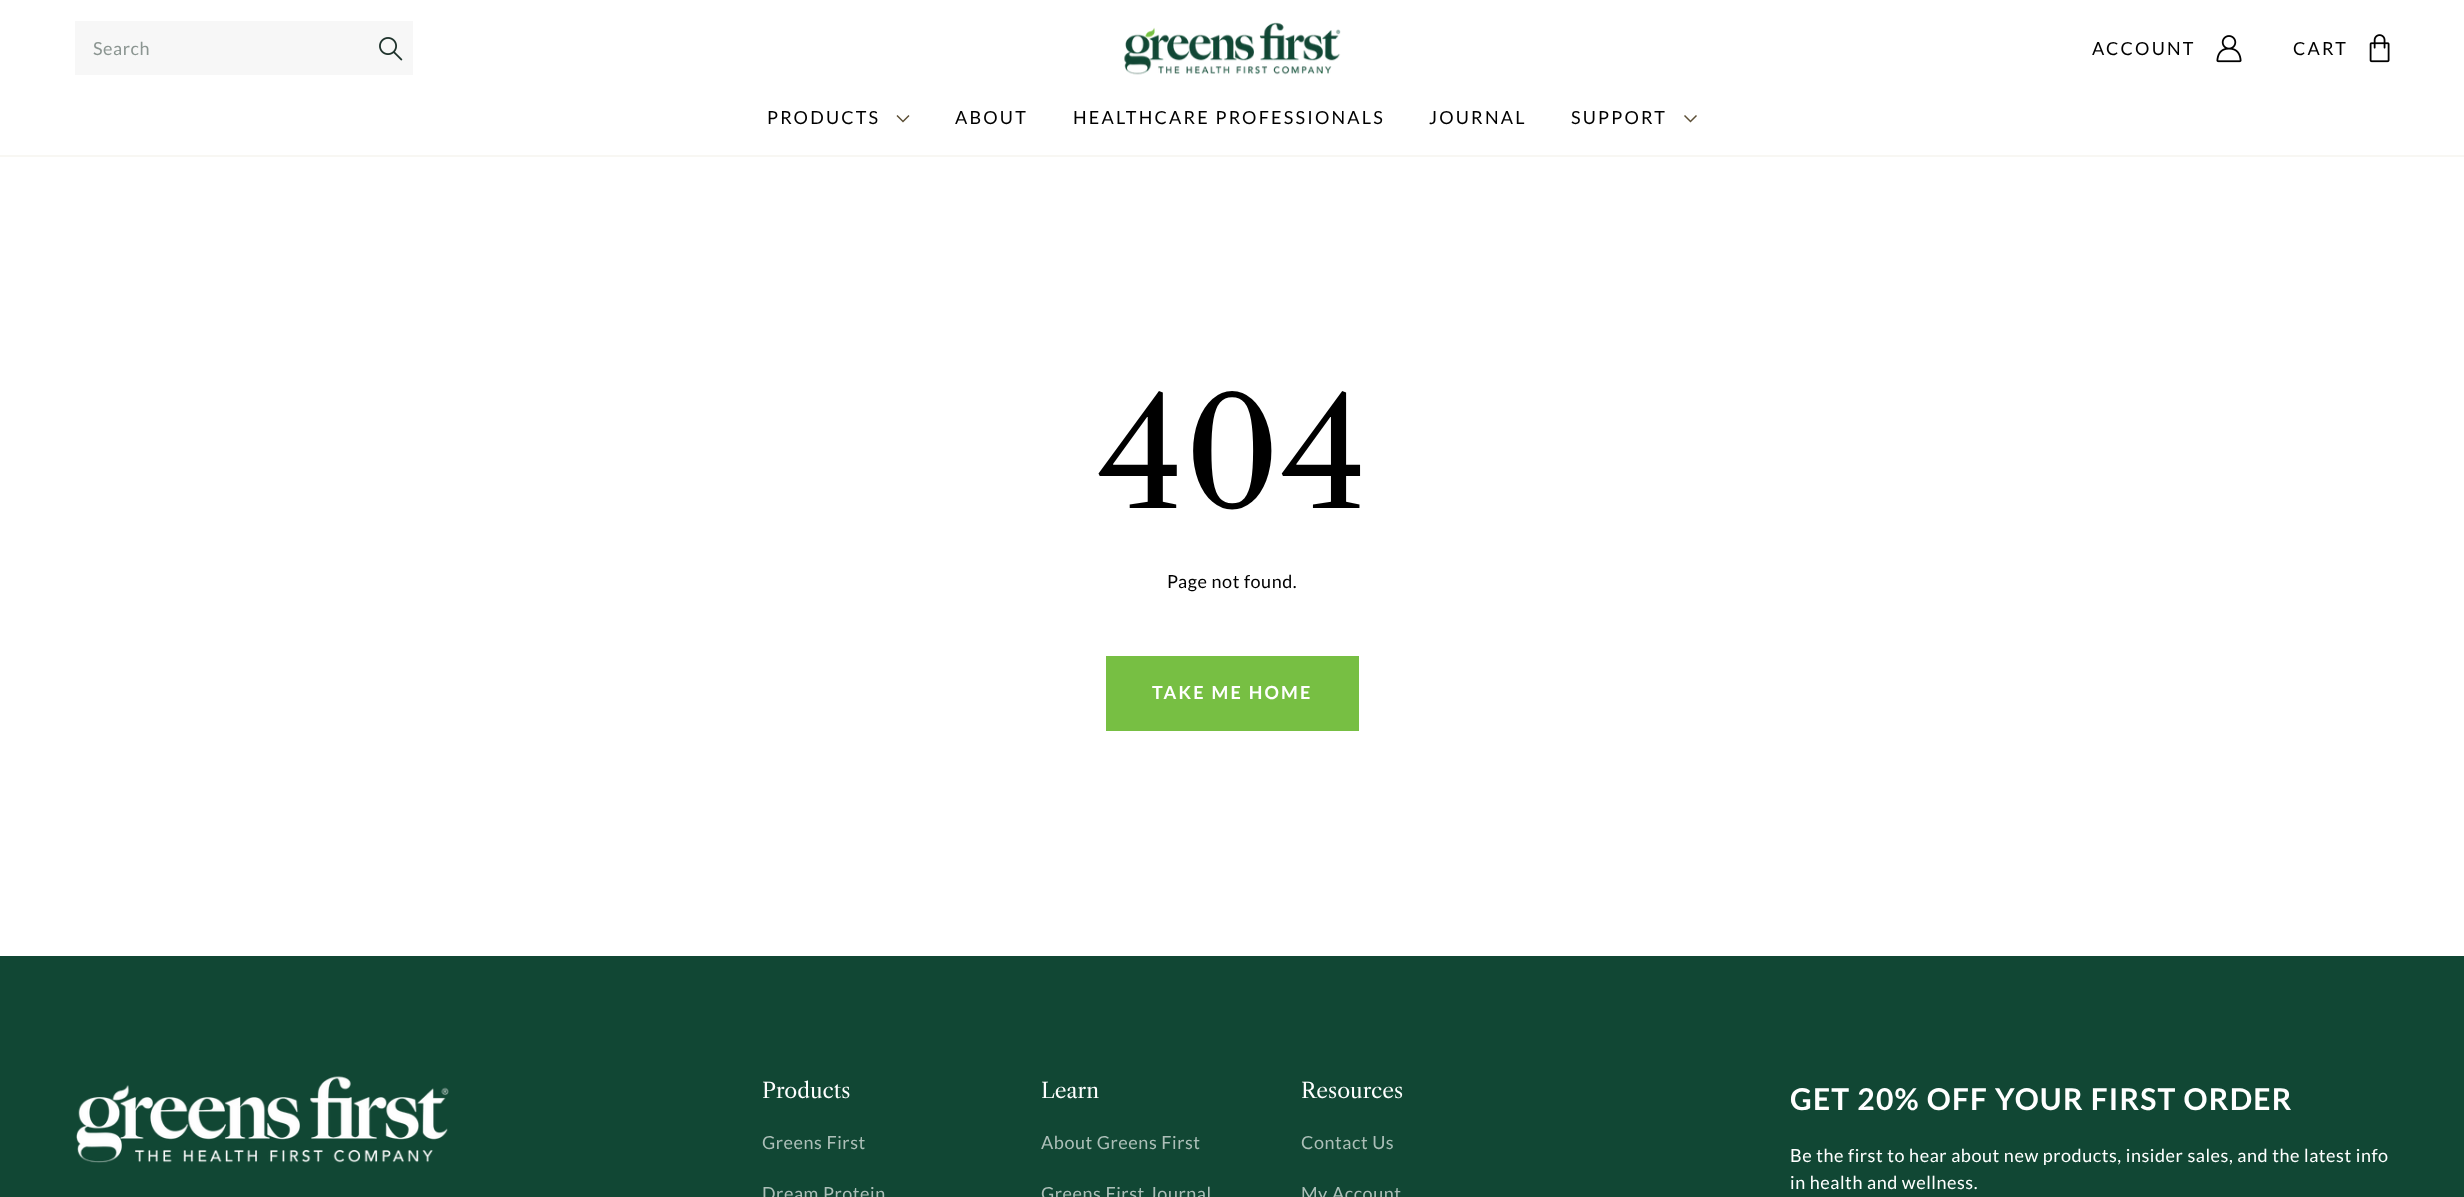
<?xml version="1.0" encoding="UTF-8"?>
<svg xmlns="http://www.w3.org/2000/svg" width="2464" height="1197">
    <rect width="100%" height="100%" fill="#FFFFFF"/>
    <rect x="0" y="155" width="2464" height="2" fill="#F8F7F3"/>
    <rect x="75" y="21" width="338" height="54" fill="#F7F7F7"/>
    <text x="93" y="55" font-family="Lato" font-size="18" letter-spacing="0.55" fill="#8B9591">Search</text>
    <image x="379" y="37" width="24" height="24" href="img_01.png"/>
    <image x="1124" y="22" width="217" height="53" href="img_02.png"/>
    <text x="2092" y="55" font-family="Lato" font-size="18" letter-spacing="2.2" fill="#000000">ACCOUNT</text>
    <image x="2216" y="35" width="26" height="28" href="img_03.png"/>
    <text x="2293" y="55" font-family="Lato" font-size="18" letter-spacing="2.2" fill="#000000">CART</text>
    <image x="2369" y="34" width="21" height="29" href="img_04.png"/>
    <text x="767" y="124" font-family="Lato" font-size="18" letter-spacing="2.2" fill="#000000">PRODUCTS</text>
    <path d="M 897 115.5 L 903 121.5 L 909 115.5" fill="none" stroke="#5C4F36" stroke-width="1.5"/>
    <text x="955" y="124" font-family="Lato" font-size="18" letter-spacing="2.2" fill="#000000">ABOUT</text>
    <text x="1073" y="124" font-family="Lato" font-size="18" letter-spacing="2.2" fill="#000000">HEALTHCARE PROFESSIONALS</text>
    <text x="1429" y="124" font-family="Lato" font-size="18" letter-spacing="2.2" fill="#000000">JOURNAL</text>
    <text x="1571" y="124" font-family="Lato" font-size="18" letter-spacing="2.2" fill="#000000">SUPPORT</text>
    <path d="M 1684.5 115.5 L 1690.5 121.5 L 1696.5 115.5" fill="none" stroke="#5C4F36" stroke-width="1.5"/>
    <text x="1097" y="508" font-family="Libre Caslon Text" font-size="150" fill="#000000">404</text>
    <text x="1167" y="588" font-family="Lato" font-size="18" letter-spacing="0.55" fill="#000000">Page not found.</text>
    <rect x="1106" y="656" width="253" height="75" fill="#77BF43"/>
    <text x="1152" y="699" font-family="Lato" font-size="18" font-weight="700" letter-spacing="2.2" fill="#FFFFFF">TAKE ME HOME</text>
    <rect x="0" y="956" width="2464" height="241" fill="#114734"/>
    <image x="76" y="1076" width="373" height="87" href="img_05.png"/>
    <text x="762" y="1098" font-family="Libre Caslon Text" font-size="21" fill="#FFFFFF">Products</text>
    <text x="762" y="1149" font-family="Lato" font-size="18" letter-spacing="0.55" fill="#ACBFB8">Greens First</text>
    <text x="762" y="1200" font-family="Lato" font-size="18" letter-spacing="0.55" fill="#ACBFB8">Dream Protein</text>
    <text x="1041" y="1098" font-family="Libre Caslon Text" font-size="21" fill="#FFFFFF">Learn</text>
    <text x="1041" y="1149" font-family="Lato" font-size="18" letter-spacing="0.55" fill="#ACBFB8">About Greens First</text>
    <text x="1041" y="1200" font-family="Lato" font-size="18" letter-spacing="0.55" fill="#ACBFB8">Greens First Journal</text>
    <text x="1301" y="1098" font-family="Libre Caslon Text" font-size="21" fill="#FFFFFF">Resources</text>
    <text x="1301" y="1149" font-family="Lato" font-size="18" letter-spacing="0.55" fill="#ACBFB8">Contact Us</text>
    <text x="1301" y="1200" font-family="Lato" font-size="18" letter-spacing="0.55" fill="#ACBFB8">My Account</text>
    <text x="1790" y="1110" font-family="Lato" font-size="30" font-weight="700" letter-spacing="1.2" fill="#FFFFFF">GET 20% OFF YOUR FIRST ORDER</text>
    <text font-family="Lato" font-size="18" letter-spacing="0.55" fill="#FFFFFF">
        <tspan x="1790" y="1162">Be the first to hear about new products, insider sales, and the latest info</tspan>
        <tspan x="1790" y="1189">in health and wellness.</tspan>
    </text>
</svg>
